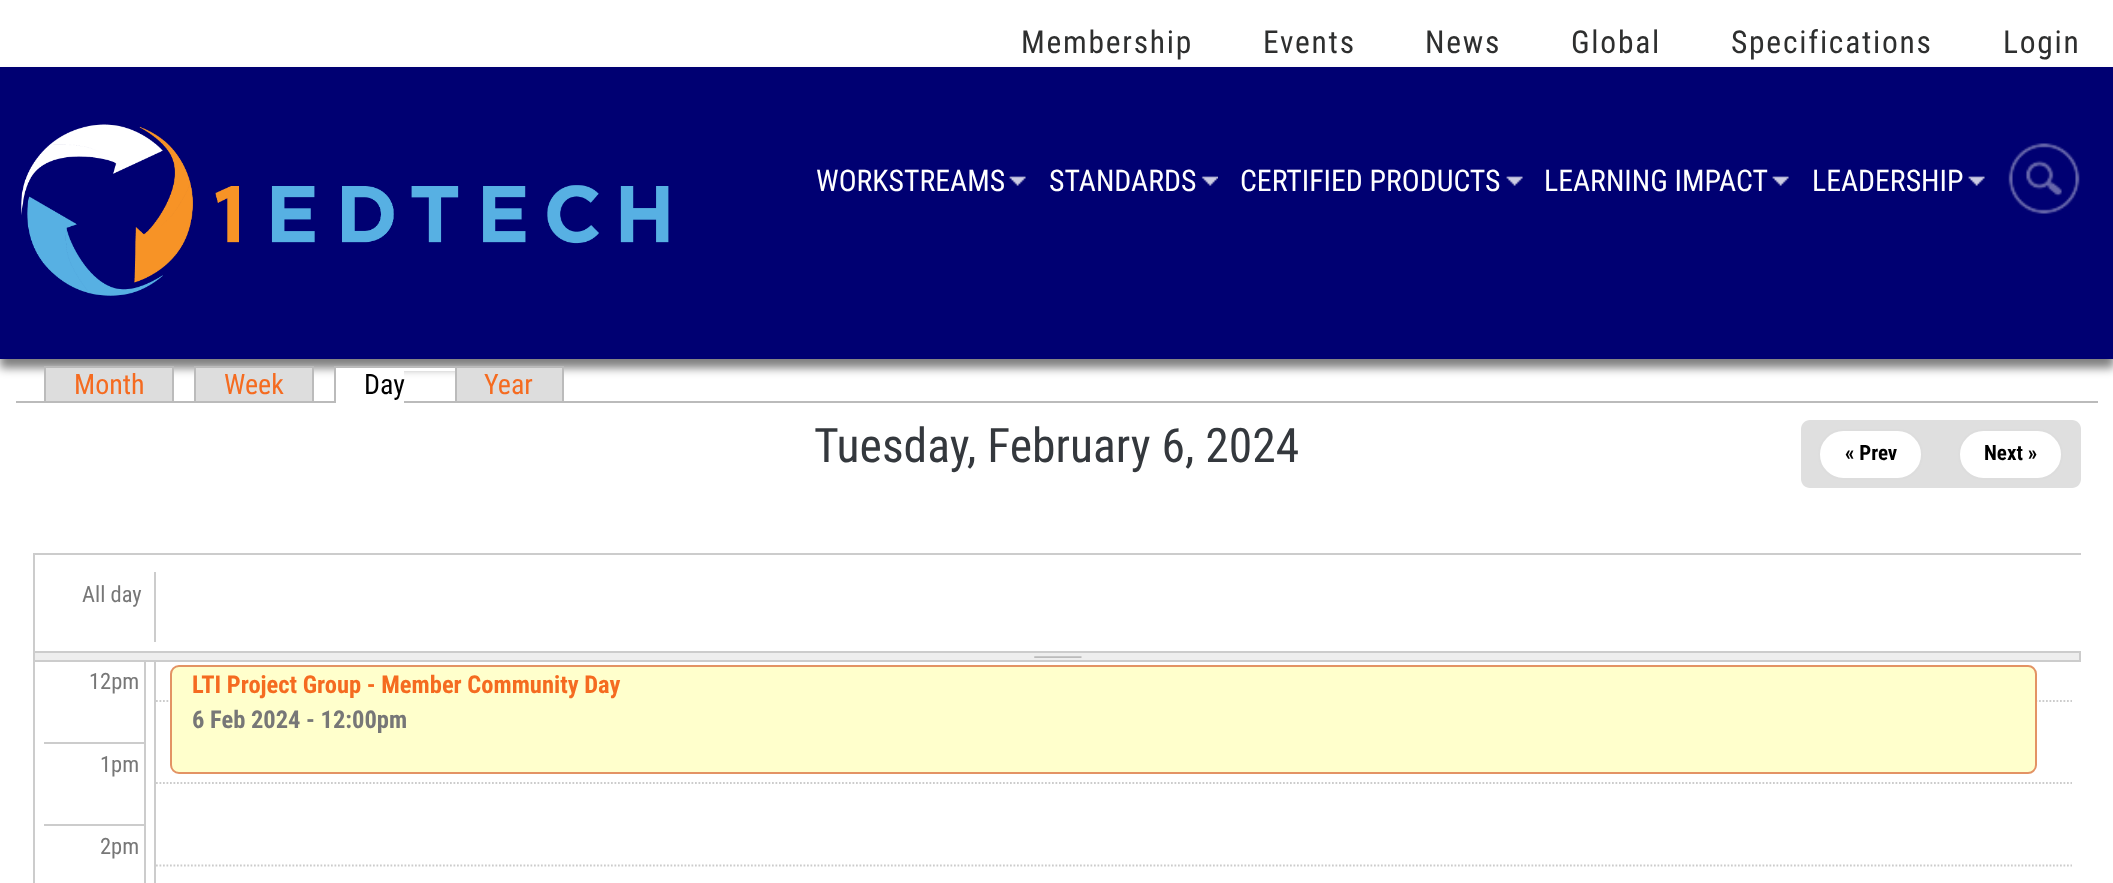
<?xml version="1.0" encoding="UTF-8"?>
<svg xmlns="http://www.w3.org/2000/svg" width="2113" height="883">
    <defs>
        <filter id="blur1" x="-50%" y="-200%" width="200%" height="500%"><feGaussianBlur stdDeviation="5"/></filter>
    </defs>
    <rect width="100%" height="100%" fill="#FFFFFF"/>
    <rect x="0" y="75" width="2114" height="293" fill="#000000" fill-opacity="0.5" filter="url(#blur1)"/>
    <text x="1021" y="53" font-family="Roboto Condensed" font-size="31.5" letter-spacing="1.75" fill="#2E2F2F">Membership</text>
    <text x="1263" y="53" font-family="Roboto Condensed" font-size="31.5" letter-spacing="1.75" fill="#2E2F2F">Events</text>
    <text x="1425" y="53" font-family="Roboto Condensed" font-size="31.5" letter-spacing="1.75" fill="#2E2F2F">News</text>
    <text x="1571" y="53" font-family="Roboto Condensed" font-size="31.5" letter-spacing="1.75" fill="#2E2F2F">Global</text>
    <text x="1731" y="53" font-family="Roboto Condensed" font-size="31.5" letter-spacing="1.75" fill="#2E2F2F">Specifications</text>
    <text x="2003" y="53" font-family="Roboto Condensed" font-size="31.5" letter-spacing="1.75" fill="#2E2F2F">Login</text>
    <rect x="0" y="67" width="2113" height="292" fill="#000072"/>
    <image x="21" y="124" width="648" height="172" href="img_01.png"/>
    <text x="816" y="191" font-family="Roboto Condensed" font-size="29.75" fill="#FFFFFF">WORKSTREAMS</text>
    <image x="1009" y="176" width="17" height="10" href="img_02.png"/>
    <text x="1049" y="191" font-family="Roboto Condensed" font-size="29.75" fill="#FFFFFF">STANDARDS</text>
    <image x="1201" y="176" width="17" height="10" href="img_03.png"/>
    <text x="1240" y="191" font-family="Roboto Condensed" font-size="29.75" fill="#FFFFFF">CERTIFIED PRODUCTS</text>
    <image x="1506" y="176" width="17" height="10" href="img_04.png"/>
    <text x="1544" y="191" font-family="Roboto Condensed" font-size="29.75" fill="#FFFFFF">LEARNING IMPACT</text>
    <image x="1772" y="176" width="17" height="10" href="img_05.png"/>
    <text x="1812" y="191" font-family="Roboto Condensed" font-size="29.75" fill="#FFFFFF">LEADERSHIP</text>
    <image x="1968" y="176" width="17" height="10" href="img_05.png"/>
    <image x="2008" y="143" width="72" height="71" href="img_06.png"/>
    <rect x="16" y="401" width="2082" height="2" fill="#BBBBBB"/>
    <rect x="46" y="368" width="126" height="33" fill="#DDDDDD"/>
    <text x="74" y="394" font-family="Roboto Condensed" font-size="28" fill="#F56B20">Month</text>
    <rect x="44" y="366" width="129" height="1" fill="#BBBBBB"/>
    <rect x="172" y="366" width="2" height="35" fill="#BBBBBB"/>
    <rect x="44" y="366" width="2" height="35" fill="#BBBBBB"/>
    <rect x="196" y="368" width="116" height="33" fill="#DDDDDD"/>
    <text x="224" y="394" font-family="Roboto Condensed" font-size="28" fill="#F56B20">Week</text>
    <rect x="194" y="366" width="119" height="1" fill="#BBBBBB"/>
    <rect x="312" y="366" width="2" height="35" fill="#BBBBBB"/>
    <rect x="194" y="366" width="2" height="35" fill="#BBBBBB"/>
    <rect x="336" y="368" width="68" height="35" fill="#FFFFFF"/>
    <text x="364" y="394" font-family="Roboto Condensed" font-size="28" fill="#000000">Day</text>
    <rect x="334" y="366" width="230" height="1" fill="#BBBBBB"/>
    <rect x="334" y="366" width="2" height="37" fill="#BBBBBB"/>
    <rect x="404" y="368" width="51" height="3" fill="#FFFFFF"/>
    <rect x="457" y="368" width="105" height="33" fill="#DDDDDD"/>
    <text x="484" y="394" font-family="Roboto Condensed" font-size="28" fill="#F56B20">Year</text>
    <rect x="562" y="366" width="2" height="35" fill="#BBBBBB"/>
    <rect x="455" y="366" width="2" height="35" fill="#BBBBBB"/>
    <text x="814" y="462" font-family="Roboto Condensed" font-size="47.6" fill="#34383D">Tuesday, February 6, 2024</text>
    <path d="M 1810 420 H 1941 V 488 H 1810 C 1805 488 1801 484 1801 479 V 429 C 1801 424 1805 420 1810 420 Z" fill="#DFDFDF"/>
    <rect x="1819" y="430" width="103" height="49" rx="24.5" fill="#FFFFFF" stroke="#DDDDDD" stroke-width="2"/>
    <text x="1845" y="460" font-family="Roboto Condensed" font-size="21" font-weight="700" fill="#000000">« Prev</text>
    <path d="M 1941 420 H 2072 C 2077 420 2081 424 2081 429 V 479 C 2081 484 2077 488 2072 488 H 1941 Z" fill="#DFDFDF"/>
    <rect x="1959" y="430" width="103" height="49" rx="24.5" fill="#FFFFFF" stroke="#DDDDDD" stroke-width="2"/>
    <text x="1984" y="460" font-family="Roboto Condensed" font-size="21" font-weight="700" fill="#000000">Next »</text>
    <rect x="33" y="553" width="2048" height="2" fill="#CCCCCC"/>
    <rect x="33" y="651" width="2048" height="2" fill="#CCCCCC"/>
    <rect x="33" y="553" width="2" height="100" fill="#CCCCCC"/>
    <text x="82" y="602" font-family="Roboto Condensed" font-size="22.5" fill="#777777">All day</text>
    <rect x="154" y="572" width="2" height="70" fill="#CCCCCC"/>
    <rect x="33" y="653" width="2048" height="7" fill="#EEEEEE"/>
    <rect x="2079" y="653" width="2" height="7" fill="#CCCCCC"/>
    <rect x="33" y="653" width="2" height="7" fill="#CCCCCC"/>
    <image x="1034" y="656" width="48" height="2" href="img_07.png"/>
    <rect x="33" y="660" width="2048" height="2" fill="#CCCCCC"/>
    <rect x="33" y="660" width="2" height="223" fill="#CCCCCC"/>
    <rect x="144" y="662" width="2" height="221" fill="#CCCCCC"/>
    <text x="89" y="689" font-family="Roboto Condensed" font-size="22.5" fill="#777777">12pm</text>
    <rect x="44" y="742" width="100" height="2" fill="#CCCCCC"/>
    <text x="100" y="772" font-family="Roboto Condensed" font-size="22.5" fill="#777777">1pm</text>
    <rect x="44" y="824" width="100" height="2" fill="#CCCCCC"/>
    <text x="100" y="854" font-family="Roboto Condensed" font-size="22.5" fill="#777777">2pm</text>
    <rect x="154" y="662" width="2" height="221" fill="#CCCCCC"/>
    <path d="M 156 701 H 2072" fill="none" stroke="#CCCCCC" stroke-width="1.8" stroke-dasharray="1.75 1.75"/>
    <rect x="171" y="666" width="1865" height="107" rx="8" fill="#FFFFCC" stroke="#E39364" stroke-width="2"/>
    <text x="192" y="693" font-family="Roboto Condensed" font-size="24.5" font-weight="700" fill="#F56B20">LTI Project Group - Member Community Day</text>
    <text x="192" y="728" font-family="Roboto Condensed" font-size="24.5" font-weight="700" fill="#777777">6 Feb 2024 - 12:00pm</text>
    <path d="M 156 783 H 2072" fill="none" stroke="#CCCCCC" stroke-width="1.8" stroke-dasharray="1.75 1.75"/>
    <path d="M 156 865.5 H 2072" fill="none" stroke="#CCCCCC" stroke-width="1.8" stroke-dasharray="1.75 1.75"/>
</svg>
